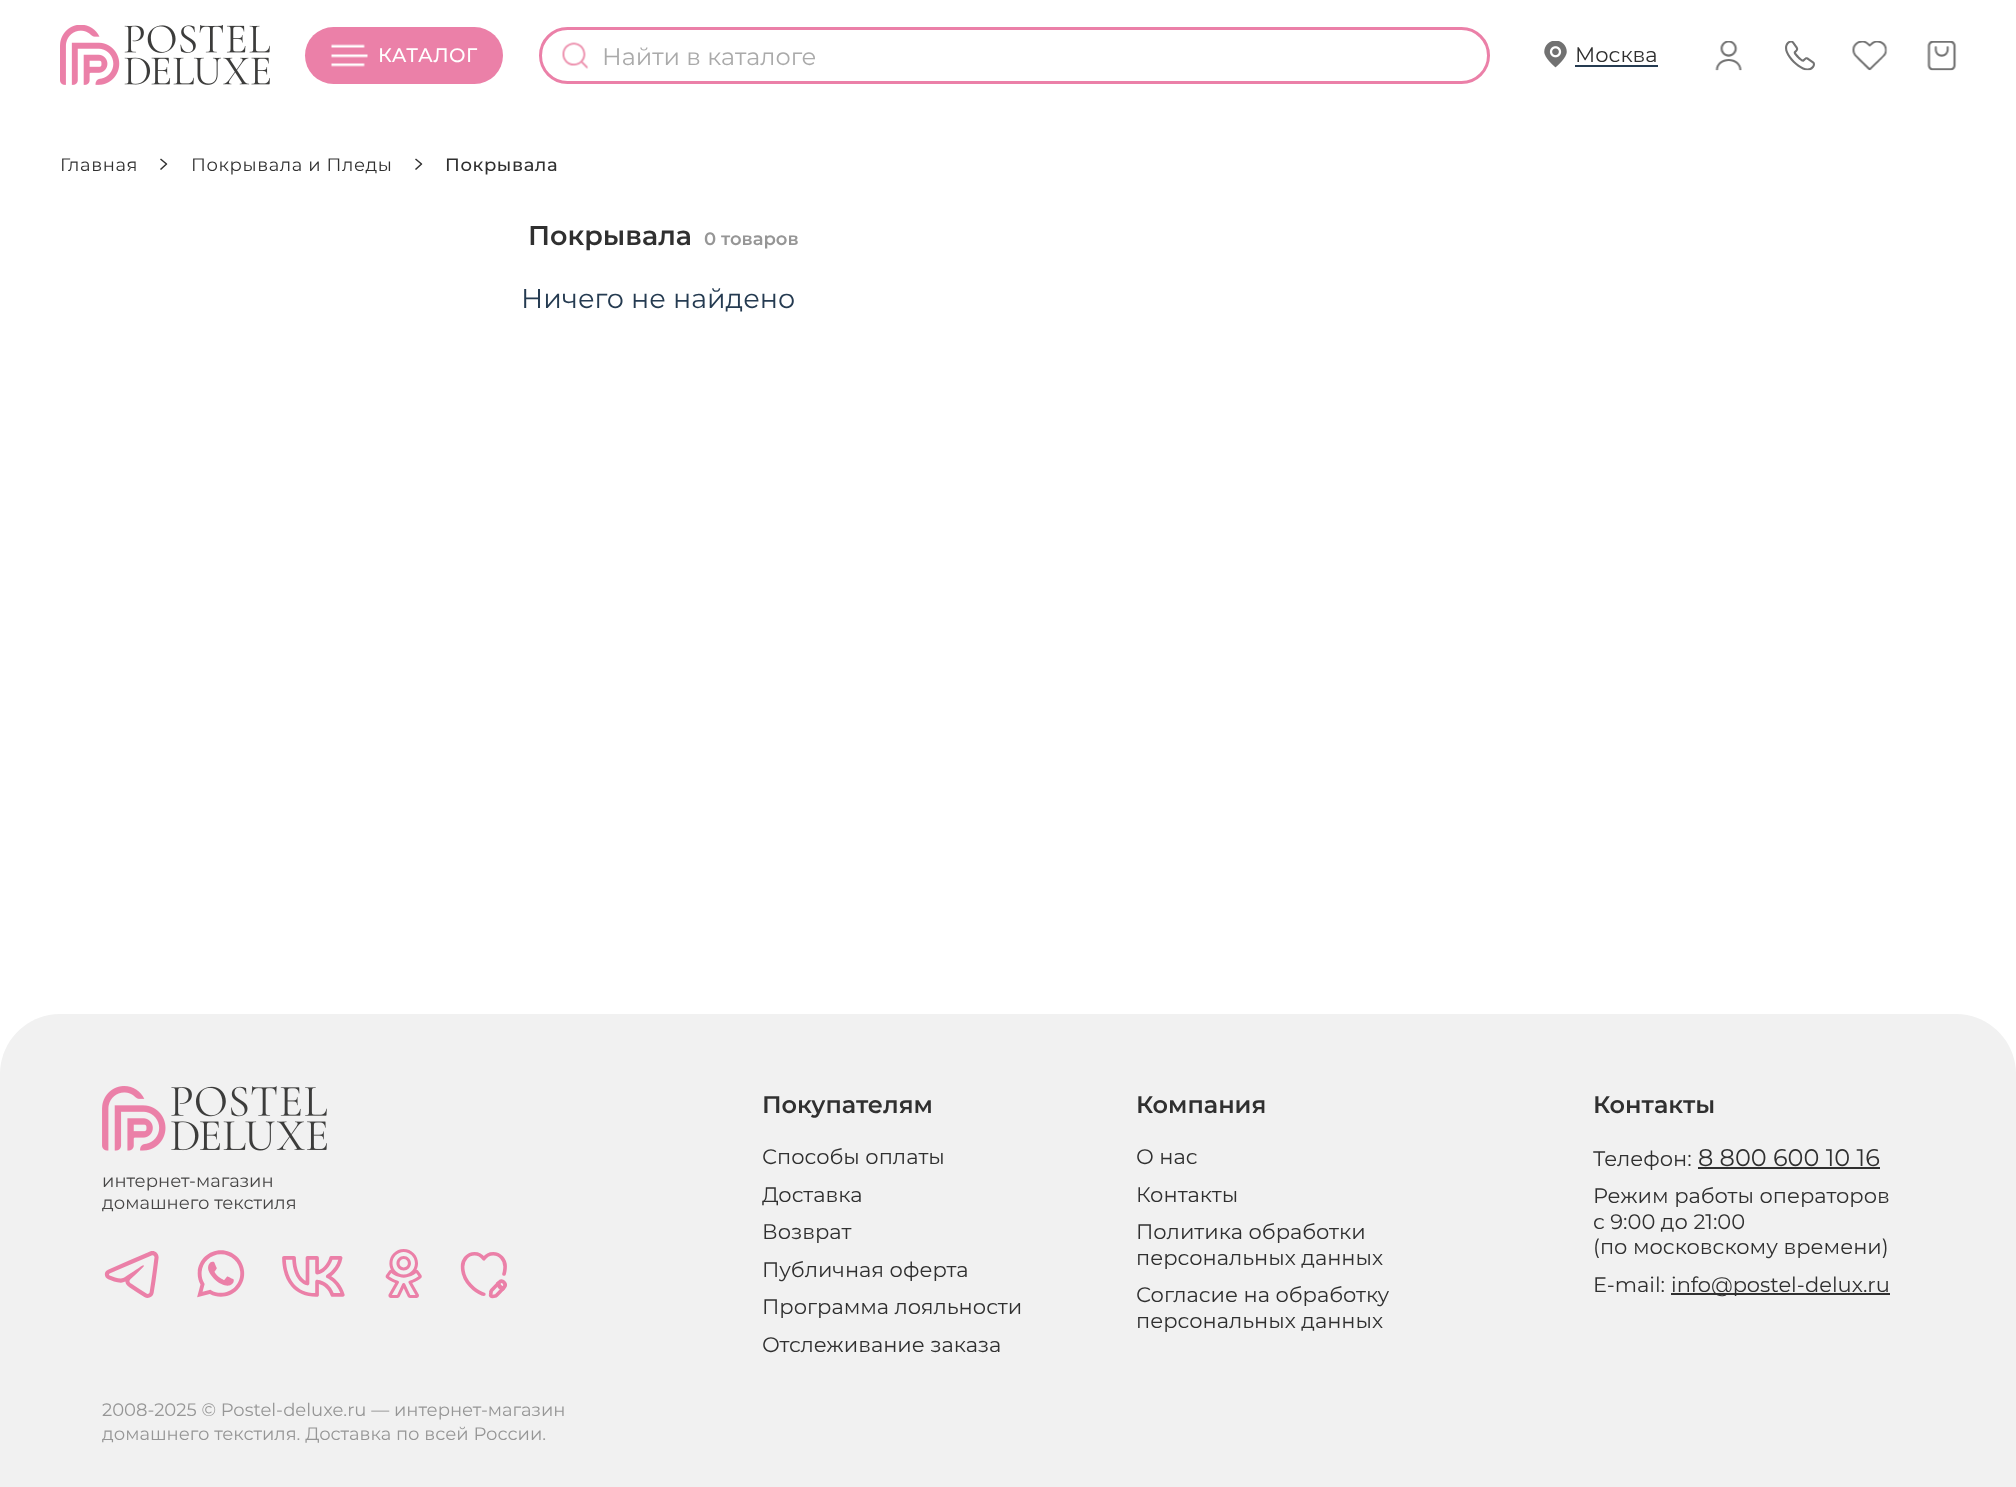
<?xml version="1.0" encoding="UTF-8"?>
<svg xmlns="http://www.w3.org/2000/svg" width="2016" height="1487">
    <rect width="100%" height="100%" fill="#FFFFFF"/>
    <image x="60" y="25" width="210" height="60" href="img_01.png"/>
    <rect x="305" y="27" width="198" height="57" rx="28.5" fill="#EB80A8"/>
    <image x="331" y="44" width="37" height="23" href="img_02.png"/>
    <text x="378" y="62" font-family="Montserrat" font-size="19.5" font-weight="500" letter-spacing="0.5" fill="#FFFFFF">КАТАЛОГ</text>
    <rect x="540.5" y="28.5" width="948" height="54" rx="27" fill="none" stroke="#EB80A8" stroke-width="3"/>
    <image x="562" y="42" width="27" height="27" href="img_03.png"/>
    <text x="602" y="65" font-family="Montserrat" font-size="24" fill="#AAAAAA">Найти в каталоге</text>
    <image x="1544" y="41" width="23" height="27" href="img_04.png"/>
    <text x="1575" y="62" font-family="Montserrat" font-size="21" fill="#303030">Москва</text>
    <rect x="1575" y="65" width="83" height="2" fill="#253B51"/>
    <image x="1715" y="41" width="27" height="30" href="img_05.png"/>
    <image x="1785" y="41" width="30" height="30" href="img_06.png"/>
    <image x="1852" y="41" width="36" height="30" href="img_07.png"/>
    <image x="1927" y="41" width="30" height="30" href="img_08.png"/>
    <text x="60" y="171" font-family="Montserrat" font-size="18" letter-spacing="0.6" fill="#303030">Главная</text>
    <path d="M 160.5 159 L 166.5 164 L 160.5 169.5" fill="none" stroke="#303030" stroke-width="1.5" stroke-linejoin="round"/>
    <text x="191" y="171" font-family="Montserrat" font-size="18" letter-spacing="0.6" fill="#303030">Покрывала и Пледы</text>
    <path d="M 415.5 159 L 421.5 164 L 415.5 169.5" fill="none" stroke="#303030" stroke-width="1.5" stroke-linejoin="round"/>
    <text x="445" y="171" font-family="Montserrat" font-size="18" font-weight="500" letter-spacing="0.6" fill="#303030">Покрывала</text>
    <text x="528" y="245" font-family="Montserrat" font-size="27" font-weight="600" fill="#303030">Покрывала</text>
    <text x="704" y="245" font-family="Montserrat" font-size="18" font-weight="600" fill="#969696">0 товаров</text>
    <text x="521" y="308" font-family="Montserrat" font-size="27" fill="#253B51">Ничего не найдено</text>
    <path d="M 60 1014 H 1956 C 1989 1014 2016 1041 2016 1074 V 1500 H 0 V 1074 C 0 1041 27 1014 60 1014 Z" fill="#F1F1F1"/>
    <image x="102" y="1086" width="225" height="65" href="img_09.png"/>
    <text font-family="Montserrat" font-size="18" fill="#474646">
        <tspan x="102" y="1187">интернет-магазин</tspan>
        <tspan x="102" y="1209">домашнего текстиля</tspan>
    </text>
    <image x="104" y="1251" width="55" height="47" href="img_10.png"/>
    <image x="197" y="1250" width="48" height="48" href="img_11.png"/>
    <image x="282" y="1256" width="63" height="41" href="img_12.png"/>
    <image x="385" y="1249" width="37" height="49" href="img_13.png"/>
    <image x="460" y="1252" width="47" height="47" href="img_14.png"/>
    <text x="762" y="1113" font-family="Montserrat" font-size="24" font-weight="600" fill="#303030">Покупателям</text>
    <text font-family="Montserrat" font-size="21" fill="#303030">
        <tspan x="762" y="1164">Способы оплаты</tspan>
        <tspan x="762" y="1202">Доставка</tspan>
        <tspan x="762" y="1239">Возврат</tspan>
        <tspan x="762" y="1277">Публичная оферта</tspan>
        <tspan x="762" y="1314">Программа лояльности</tspan>
        <tspan x="762" y="1352">Отслеживание заказа</tspan>
    </text>
    <text x="1136" y="1113" font-family="Montserrat" font-size="24" font-weight="600" fill="#303030">Компания</text>
    <text font-family="Montserrat" font-size="21" fill="#303030">
        <tspan x="1136" y="1164">О нас</tspan>
        <tspan x="1136" y="1202">Контакты</tspan>
        <tspan x="1136" y="1239">Политика обработки</tspan>
        <tspan x="1136" y="1265">персональных данных</tspan>
        <tspan x="1136" y="1302">Согласие на обработку</tspan>
        <tspan x="1136" y="1328">персональных данных</tspan>
    </text>
    <text x="1593" y="1113" font-family="Montserrat" font-size="24" font-weight="600" fill="#303030">Контакты</text>
    <text x="1593" y="1166" font-family="Montserrat" font-size="21" fill="#303030">Телефон:</text>
    <text x="1698" y="1166" font-family="Montserrat" font-size="24" fill="#303030">8 800 600 10 16</text>
    <rect x="1698" y="1167" width="182" height="2" fill="#303030"/>
    <text font-family="Montserrat" font-size="21" fill="#303030">
        <tspan x="1593" y="1203">Режим работы операторов</tspan>
        <tspan x="1593" y="1229">с 9:00 до 21:00</tspan>
        <tspan x="1593" y="1254">(по московскому времени)</tspan>
        <tspan x="1593" y="1292">E-mail:</tspan>
    </text>
    <rect x="1671" y="1293" width="219" height="2" fill="#303030"/>
    <text x="1671" y="1292" font-family="Montserrat" font-size="21" fill="#303030">info@postel-delux.ru</text>
    <text font-family="Montserrat" font-size="18" fill="#969696">
        <tspan x="102" y="1416">2008-2025 © Postel-deluxe.ru — интернет-магазин</tspan>
        <tspan x="102" y="1440">домашнего текстиля. Доставка по всей России.</tspan>
    </text>
</svg>
